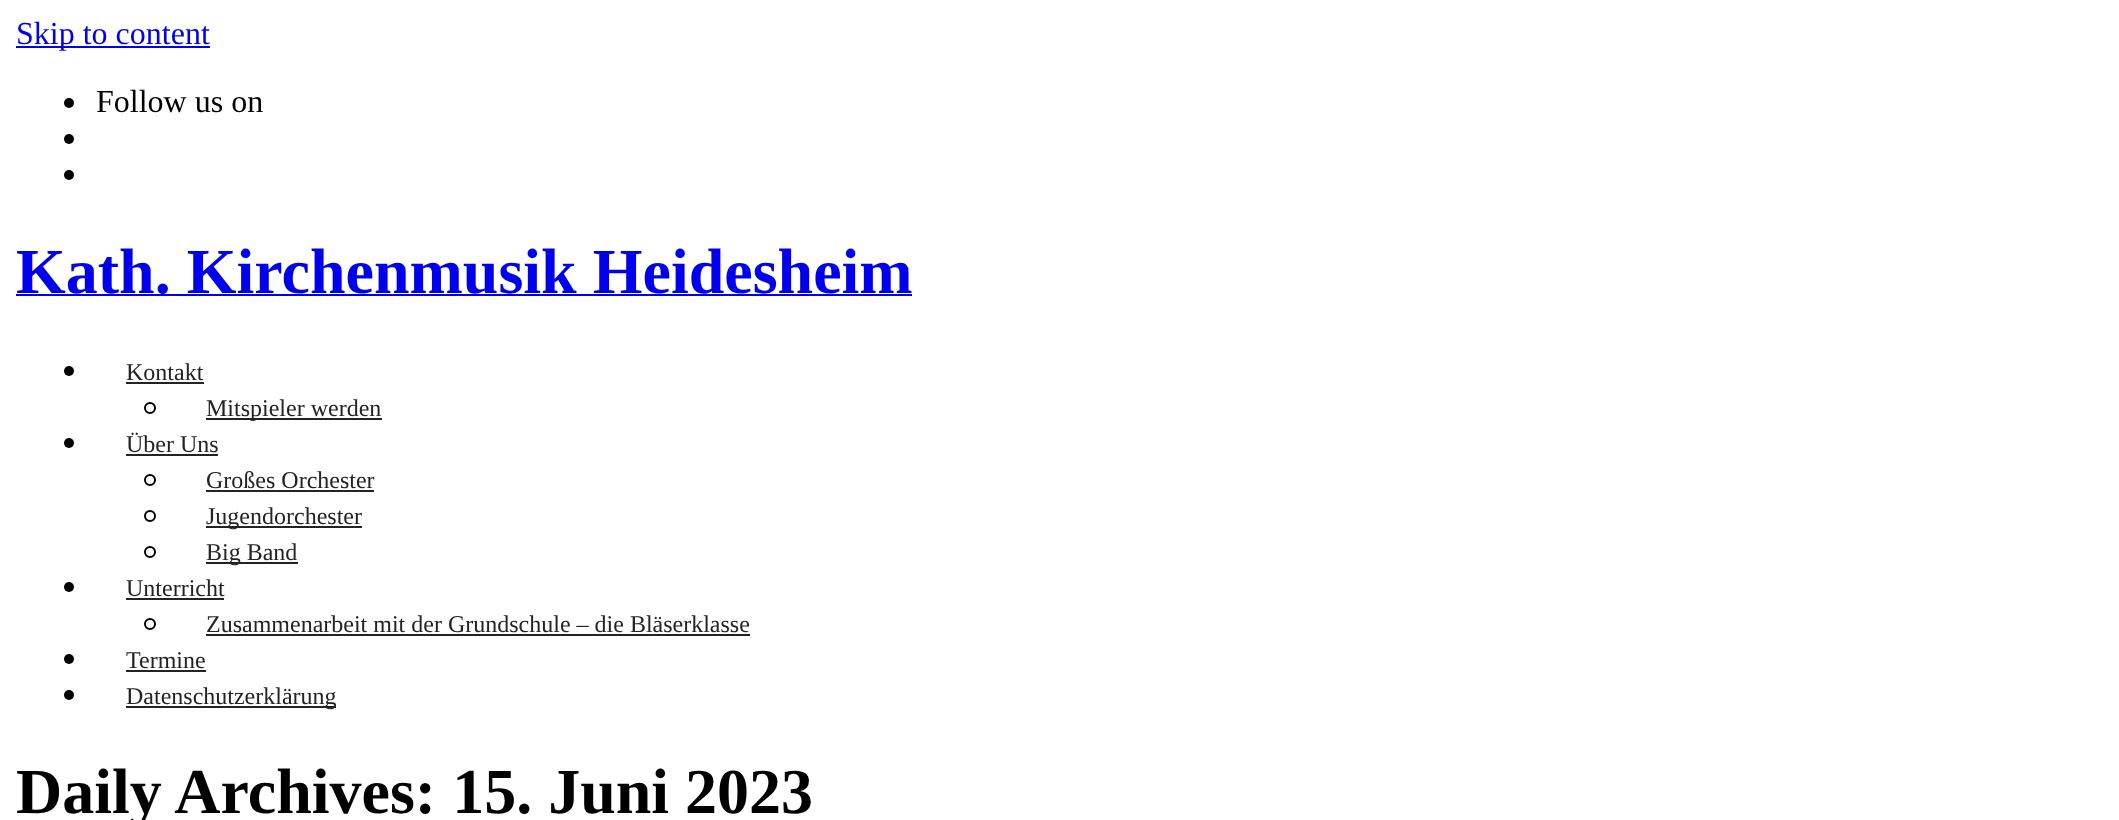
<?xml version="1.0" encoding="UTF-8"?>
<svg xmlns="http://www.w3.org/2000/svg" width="2119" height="820">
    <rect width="100%" height="100%" fill="#FFFFFF"/>
    <rect x="16" y="46" width="194" height="2" fill="#0000EE"/>
    <text x="16" y="44" font-family="Liberation Serif" font-size="32" fill="#0000EE">Skip to content</text>
    <circle cx="69" cy="103" r="5" fill="#000000"/>
    <text x="96" y="112" font-family="Liberation Serif" font-size="32" fill="#000000">Follow us on</text>
    <circle cx="69" cy="139" r="5" fill="#000000"/>
    <circle cx="69" cy="175" r="5" fill="#000000"/>
    <text x="16" y="293" font-family="Liberation Serif" font-size="64" font-weight="700" fill="#0000EE">Kath. Kirchenmusik Heidesheim</text>
    <rect x="16" y="294" width="896" height="2" fill="#0000EE"/>
    <circle cx="69" cy="371" r="5" fill="#000000"/>
    <text x="126" y="380" font-family="Liberation Serif" font-size="24" fill="#232323">Kontakt</text>
    <rect x="126" y="382" width="78" height="2" fill="#232323"/>
    <circle cx="150" cy="408" r="5" fill="none" stroke="#000000" stroke-width="2"/>
    <rect x="206" y="418" width="176" height="2" fill="#232323"/>
    <text x="206" y="416" font-family="Liberation Serif" font-size="24" fill="#232323">Mitspieler werden</text>
    <circle cx="69" cy="443" r="5" fill="#000000"/>
    <text x="126" y="452" font-family="Liberation Serif" font-size="24" fill="#232323">Über Uns</text>
    <rect x="126" y="454" width="92" height="2" fill="#232323"/>
    <circle cx="150" cy="480" r="5" fill="none" stroke="#000000" stroke-width="2"/>
    <text x="206" y="488" font-family="Liberation Serif" font-size="24" fill="#232323">Großes Orchester</text>
    <rect x="206" y="490" width="168" height="2" fill="#232323"/>
    <circle cx="150" cy="516" r="5" fill="none" stroke="#000000" stroke-width="2"/>
    <rect x="206" y="526" width="156" height="2" fill="#232323"/>
    <text x="206" y="524" font-family="Liberation Serif" font-size="24" fill="#232323">Jugendorchester</text>
    <circle cx="150" cy="552" r="5" fill="none" stroke="#000000" stroke-width="2"/>
    <rect x="206" y="562" width="92" height="2" fill="#232323"/>
    <text x="206" y="560" font-family="Liberation Serif" font-size="24" fill="#232323">Big Band</text>
    <circle cx="69" cy="587" r="5" fill="#000000"/>
    <text x="126" y="596" font-family="Liberation Serif" font-size="24" fill="#232323">Unterricht</text>
    <rect x="126" y="598" width="98" height="2" fill="#232323"/>
    <circle cx="150" cy="624" r="5" fill="none" stroke="#000000" stroke-width="2"/>
    <text x="206" y="632" font-family="Liberation Serif" font-size="24" fill="#232323">Zusammenarbeit mit der Grundschule – die Bläserklasse</text>
    <rect x="206" y="634" width="544" height="2" fill="#232323"/>
    <circle cx="69" cy="659" r="5" fill="#000000"/>
    <text x="126" y="668" font-family="Liberation Serif" font-size="24" fill="#232323">Termine</text>
    <rect x="126" y="670" width="80" height="2" fill="#232323"/>
    <circle cx="69" cy="695" r="5" fill="#000000"/>
    <rect x="126" y="706" width="210" height="2" fill="#232323"/>
    <text x="126" y="704" font-family="Liberation Serif" font-size="24" fill="#232323">Datenschutzerklärung</text>
    <text x="16" y="813" font-family="Liberation Serif" font-size="64" font-weight="700" fill="#000000">Daily Archives: 15. Juni 2023</text>
</svg>
